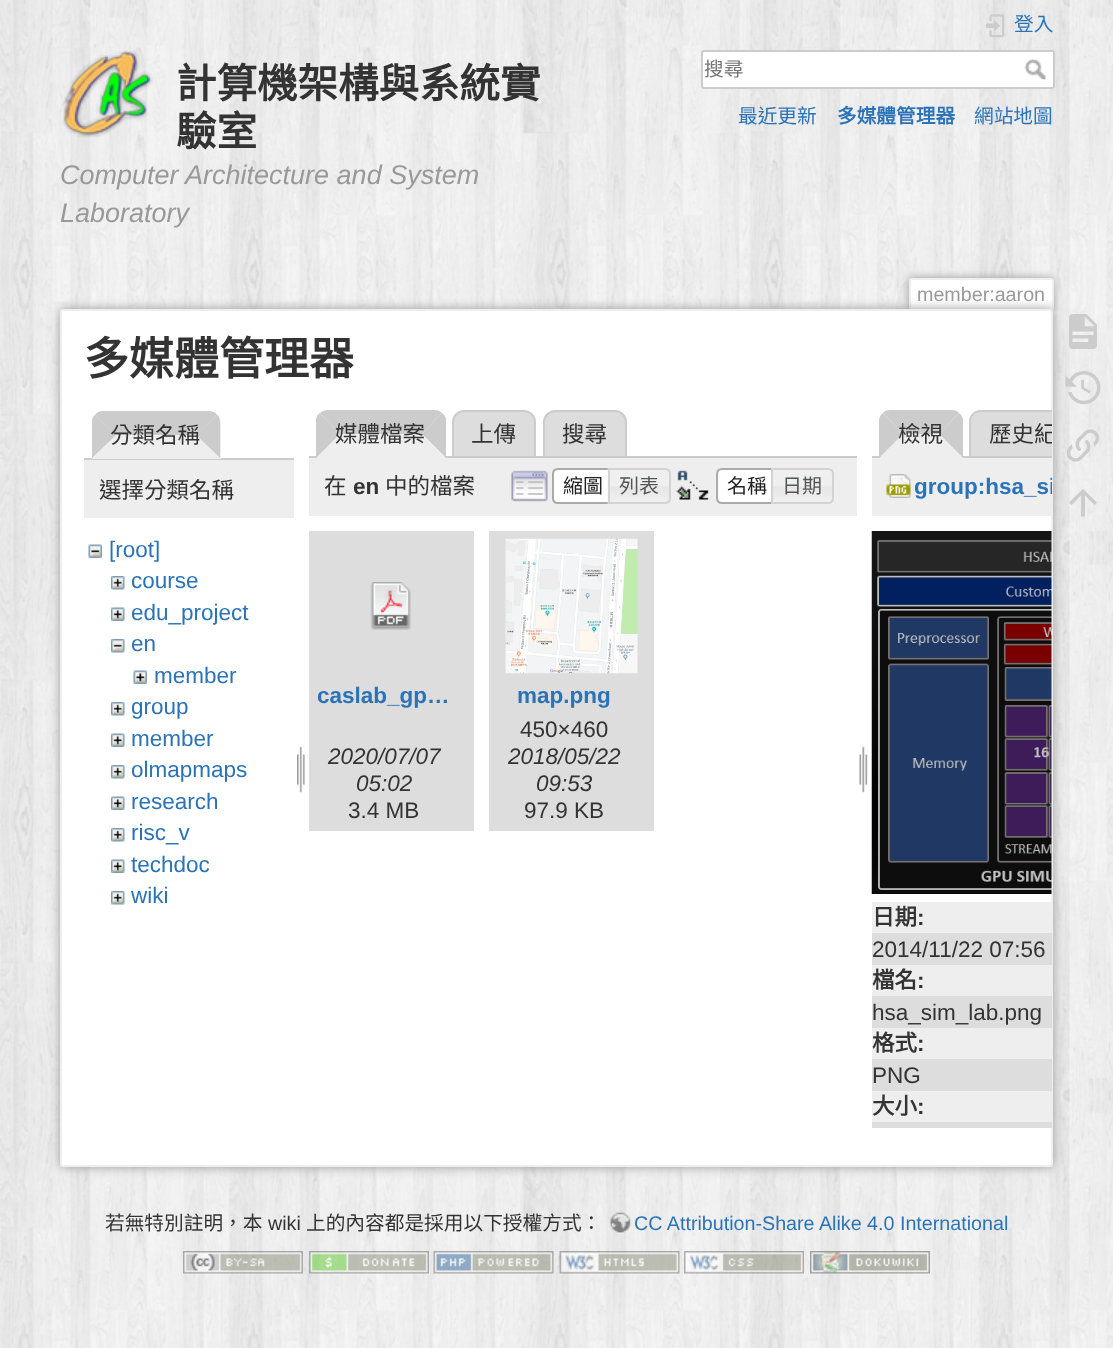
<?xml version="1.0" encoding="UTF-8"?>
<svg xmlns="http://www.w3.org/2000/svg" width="1113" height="1348">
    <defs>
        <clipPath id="clip1"><rect x="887" y="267" width="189" height="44"/></clipPath>
        <filter id="blur1" x="-50%" y="-200%" width="200%" height="500%"><feGaussianBlur stdDeviation="5"/></filter>
        <filter id="blur2" x="-50%" y="-200%" width="200%" height="500%"><feGaussianBlur stdDeviation="5.5"/></filter>
        <clipPath id="clip2"><rect x="62" y="311" width="990" height="855" rx="1.5"/></clipPath>
    </defs>
    <rect width="100%" height="100%" fill="#FFFFFF"/>
    <image x="0" y="0" width="1113" height="1348" href="img_01.png"/>
    <image x="60" y="50" width="93" height="88" href="img_02.png"/>
    <text font-family="Noto Sans CJK TC" font-size="40.5" font-weight="700" fill="#333333">
        <tspan x="176" y="98">計算機架構與系統實</tspan>
        <tspan x="176" y="146">驗室</tspan>
    </text>
    <text font-family="Liberation Sans" font-size="27" font-style="italic" fill="#999999">
        <tspan x="60" y="184">Computer Architecture and System</tspan>
        <tspan x="60" y="222">Laboratory</tspan>
    </text>
    <image x="986" y="14" width="19" height="24" href="img_03.png"/>
    <text x="1014" y="31" font-family="Noto Sans CJK TC" font-size="19.7" fill="#2B73B7">登入</text>
    <rect x="702" y="51" width="352" height="37" rx="2" fill="#FFFFFF" stroke="#CCCCCC" stroke-width="2"/>
    <text x="704" y="76" font-family="Noto Sans CJK TC" font-size="19.7" fill="#757575">搜尋</text>
    <image x="1024" y="59" width="22" height="21" href="img_04.png"/>
    <text x="738" y="123" font-family="Noto Sans CJK TC" font-size="19.7" fill="#2B73B7">最近更新</text>
    <text x="837" y="123" font-family="Noto Sans CJK TC" font-size="19.7" font-weight="700" fill="#2B73B7">多媒體管理器</text>
    <text x="974" y="123" font-family="Noto Sans CJK TC" font-size="19.7" fill="#2B73B7">網站地圖</text>
    <g clip-path="url(#clip1)">
        <rect x="909" y="278" width="144" height="33" rx="3" fill="#999999" filter="url(#blur1)"/>
    </g>
    <rect x="911" y="280" width="141" height="30" fill="#FFFFFF"/>
    <rect x="911" y="278" width="141" height="2" fill="#EEEEEE"/>
    <rect x="1052" y="279" width="2" height="32" fill="#EEEEEE"/>
    <rect x="909" y="279" width="2" height="32" fill="#EEEEEE"/>
    <text x="917" y="301" font-family="Liberation Sans" font-size="19.7" fill="#999999">member:aaron</text>
    <rect x="60" y="309" width="993" height="858" rx="3" fill="#999999" filter="url(#blur2)"/>
    <rect x="61" y="310" width="991" height="856" rx="2" fill="#FFFFFF" stroke="#EEEEEE" stroke-width="2"/>
    <text x="84" y="375" font-family="Noto Sans CJK TC" font-size="45" font-weight="700" fill="#333333">多媒體管理器</text>
    <rect x="84" y="458" width="210" height="2" fill="#CCCCCC"/>
    <path d="M 104 411 H 209 C 215.5 411 221 416.5 221 423 V 459 H 92 V 423 C 92 416.5 97.5 411 104 411 Z" fill="#EEEEEE"/>
    <path d="M 103 411 H 209 C 212 411 215 412 217 415 L 196 435 H 116 L 95 415 C 97 412 100 411 103 411 Z" fill="#CCCCCC"/>
    <path d="M 217 415 L 196 435 L 220 458 V 422 C 220 419 219 416 217 415 Z" fill="#CCCCCC"/>
    <path d="M 220 458 L 196 435 H 116 L 92 459 H 220 Z" fill="#EEEEEE"/>
    <path d="M 95 415 C 93 416 92 419 92 422 V 458 L 116 435 Z" fill="#CCCCCC"/>
    <text x="110" y="443" font-family="Noto Sans CJK TC" font-size="22.5" fill="#333333">分類名稱</text>
    <rect x="84" y="460" width="210" height="58" fill="#EEEEEE"/>
    <text x="99" y="498" font-family="Noto Sans CJK TC" font-size="22.5" fill="#333333">選擇分類名稱</text>
    <image x="88" y="544" width="14" height="14" href="img_05.png"/>
    <text x="109" y="557" font-family="Liberation Sans" font-size="22.5" fill="#2B73B7">[root]</text>
    <image x="111" y="576" width="14" height="14" href="img_06.png"/>
    <text x="131" y="588" font-family="Liberation Sans" font-size="22.5" fill="#2B73B7">course</text>
    <image x="111" y="607" width="14" height="14" href="img_07.png"/>
    <text x="131" y="620" font-family="Liberation Sans" font-size="22.5" fill="#2B73B7">edu_project</text>
    <image x="111" y="639" width="14" height="14" href="img_08.png"/>
    <text x="131" y="651" font-family="Liberation Sans" font-size="22.5" fill="#2B73B7">en</text>
    <image x="133" y="670" width="14" height="14" href="img_09.png"/>
    <text x="154" y="683" font-family="Liberation Sans" font-size="22.5" fill="#2B73B7">member</text>
    <image x="111" y="702" width="14" height="14" href="img_06.png"/>
    <text x="131" y="714" font-family="Liberation Sans" font-size="22.5" fill="#2B73B7">group</text>
    <image x="111" y="733" width="14" height="14" href="img_07.png"/>
    <text x="131" y="746" font-family="Liberation Sans" font-size="22.5" fill="#2B73B7">member</text>
    <image x="111" y="765" width="14" height="14" href="img_06.png"/>
    <text x="131" y="777" font-family="Liberation Sans" font-size="22.5" fill="#2B73B7">olmapmaps</text>
    <image x="111" y="796" width="14" height="14" href="img_07.png"/>
    <text x="131" y="809" font-family="Liberation Sans" font-size="22.5" fill="#2B73B7">research</text>
    <image x="111" y="828" width="14" height="14" href="img_06.png"/>
    <text x="131" y="840" font-family="Liberation Sans" font-size="22.5" fill="#2B73B7">risc_v</text>
    <image x="111" y="859" width="14" height="14" href="img_07.png"/>
    <text x="131" y="872" font-family="Liberation Sans" font-size="22.5" fill="#2B73B7">techdoc</text>
    <image x="111" y="891" width="14" height="14" href="img_06.png"/>
    <text x="131" y="903" font-family="Liberation Sans" font-size="22.5" fill="#2B73B7">wiki</text>
    <image x="297" y="745" width="8" height="48" href="img_10.png"/>
    <path d="M 328 410 C 325 410 322 411 320 413 L 340 434 H 422 L 442 413 C 440 411 437 410 434 410 Z" fill="#CCCCCC"/>
    <path d="M 464 411 H 524 C 530 411 535 416 535 422 V 457 H 453 V 422 C 453 416 458 411 464 411 Z" fill="#DDDDDD" stroke="#CCCCCC" stroke-width="2"/>
    <path d="M 555 411 H 615 C 621 411 626 416 626 422 V 457 H 544 V 422 C 544 416 549 411 555 411 Z" fill="#DDDDDD" stroke="#CCCCCC" stroke-width="2"/>
    <rect x="309" y="456" width="548" height="2" fill="#CCCCCC"/>
    <path d="M 446 418 C 445 416 444 414 442 413 L 422 434 L 446 458 Z" fill="#CCCCCC"/>
    <path d="M 446 458 L 422 434 H 340 L 316 458 Z" fill="#EEEEEE"/>
    <path d="M 316 458 L 340 434 L 320 413 C 318 414 317 416 316 418 Z" fill="#CCCCCC"/>
    <text x="335" y="442" font-family="Noto Sans CJK TC" font-size="22.5" fill="#333333">媒體檔案</text>
    <text x="471" y="442" font-family="Noto Sans CJK TC" font-size="22.5" fill="#333333">上傳</text>
    <text x="562" y="442" font-family="Noto Sans CJK TC" font-size="22.5" fill="#333333">搜尋</text>
    <rect x="309" y="458" width="548" height="58" fill="#EEEEEE"/>
    <text x="324" y="494" font-family="Noto Sans CJK TC" font-size="22.5" fill="#333333">在</text>
    <text x="353" y="494" font-family="Liberation Sans" font-size="22.5" font-weight="700" fill="#333333">en</text>
    <text x="385" y="494" font-family="Noto Sans CJK TC" font-size="22.5" fill="#333333">中的檔案</text>
    <image x="511" y="470" width="37" height="32" href="img_11.png"/>
    <path d="M 558 469 H 614 V 503 H 558 C 555 503 553 501 553 498 V 474 C 553 471 555 469 558 469 Z" fill="#FFFFFF" stroke="#AAAAAA" stroke-width="2"/>
    <text x="563" y="493" font-family="Noto Sans CJK TC" font-size="20" fill="#212121">縮圖</text>
    <image x="607" y="468" width="63" height="36" href="img_12.png"/>
    <path d="M 609 469 H 665 C 668 469 670 471 670 474 V 498 C 670 501 668 503 665 503 H 609 Z" fill="none" stroke="#D3D3D3" stroke-width="2"/>
    <text x="619" y="493" font-family="Noto Sans CJK TC" font-size="20" fill="#555555">列表</text>
    <image x="676" y="470" width="33" height="30" href="img_13.png"/>
    <path d="M 722 468 H 779 V 504 H 722 C 718.5 504 716 501.5 716 498 V 474 C 716 470.5 718.5 468 722 468 Z" fill="#FFFFFF"/>
    <image x="715" y="468" width="5" height="36" href="img_14.png"/>
    <path d="M 722 469 H 778 V 503 H 722 C 719 503 717 501 717 498 V 474 C 717 471 719 469 722 469 Z" fill="none" stroke="#AAAAAA" stroke-width="2"/>
    <text x="727" y="493" font-family="Noto Sans CJK TC" font-size="20" fill="#212121">名稱</text>
    <image x="773" y="468" width="61" height="36" href="img_15.png"/>
    <path d="M 772 469 H 828 C 831 469 833 471 833 474 V 498 C 833 501 831 503 828 503 H 772 Z" fill="none" stroke="#D3D3D3" stroke-width="2"/>
    <text x="782" y="493" font-family="Noto Sans CJK TC" font-size="20" fill="#555555">日期</text>
    <rect x="309" y="531" width="165" height="300" fill="#DDDDDD"/>
    <image x="370" y="582" width="41" height="48" href="img_16.png"/>
    <text x="317" y="703" font-family="Liberation Sans" font-size="22.5" font-weight="700" fill="#2B73B7">caslab_gp…</text>
    <text x="328" y="764" font-family="Liberation Sans" font-size="22.5" font-style="italic" fill="#333333">2020/07/07</text>
    <text x="356" y="791" font-family="Liberation Sans" font-size="22.5" font-style="italic" fill="#333333">05:02</text>
    <text x="348" y="818" font-family="Liberation Sans" font-size="22.5" fill="#333333">3.4 MB</text>
    <rect x="489" y="531" width="165" height="300" fill="#DDDDDD"/>
    <image x="505" y="538" width="133" height="136" href="img_17.png"/>
    <text x="517" y="703" font-family="Liberation Sans" font-size="22.5" font-weight="700" fill="#2B73B7">map.png</text>
    <text x="520" y="737" font-family="Liberation Sans" font-size="22.5" fill="#333333">450×460</text>
    <text x="508" y="764" font-family="Liberation Sans" font-size="22.5" font-style="italic" fill="#333333">2018/05/22</text>
    <text x="536" y="791" font-family="Liberation Sans" font-size="22.5" font-style="italic" fill="#333333">09:53</text>
    <text x="524" y="818" font-family="Liberation Sans" font-size="22.5" fill="#333333">97.9 KB</text>
    <image x="859" y="745" width="9" height="48" href="img_18.png"/>
    <path d="M 890 410 C 887 410 884 411 883 413 L 903 434 H 939 L 959 413 C 958 411 955 410 952 410 Z" fill="#CCCCCC"/>
    <rect x="872" y="456" width="97" height="2" fill="#CCCCCC"/>
    <path d="M 963 458 V 421 C 963 418 962 415 959 413 L 939 434 Z" fill="#CCCCCC"/>
    <path d="M 963 458 L 939 434 H 903 L 879 458 Z" fill="#EEEEEE"/>
    <path d="M 879 458 L 903 434 L 883 413 C 880 415 879 418 879 421 Z" fill="#CCCCCC"/>
    <text x="898" y="442" font-family="Noto Sans CJK TC" font-size="22.5" fill="#333333">檢視</text>
    <path d="M 981 410 H 1052 V 458 H 969 V 422 C 969 415.5 974.5 410 981 410 Z" fill="#DDDDDD"/>
    <path d="M 981 410 C 974 410 969 415 969 422 V 458 H 1052 V 456 H 971 V 422 C 971 416 975 412 981 412 H 1052 V 410 Z" fill="#CCCCCC"/>
    <g clip-path="url(#clip2)">
        <text x="989" y="442" font-family="Noto Sans CJK TC" font-size="22.5" fill="#333333">歷史紀</text>
    </g>
    <rect x="872" y="458" width="179" height="58" fill="#EEEEEE"/>
    <image x="886" y="474" width="25" height="24" href="img_19.png"/>
    <g clip-path="url(#clip2)">
        <text x="914" y="494" font-family="Liberation Sans" font-size="22.5" font-weight="700" fill="#2B73B7">group:hsa_si</text>
    </g>
    <image x="871" y="531" width="181" height="363" href="img_20.png"/>
    <rect x="872" y="902" width="179" height="31" fill="#EEEEEE"/>
    <text x="872" y="925" font-family="Noto Sans CJK TC" font-size="22.5" font-weight="700" fill="#333333">日期</text>
    <text x="917" y="925" font-family="Liberation Sans" font-size="22.5" font-weight="700" fill="#333333">:</text>
    <rect x="872" y="933" width="180" height="32" fill="#DDDDDD"/>
    <text x="872" y="957" font-family="Liberation Sans" font-size="22.5" fill="#333333">2014/11/22 07:56</text>
    <rect x="872" y="965" width="179" height="31" fill="#EEEEEE"/>
    <text x="872" y="988" font-family="Noto Sans CJK TC" font-size="22.5" font-weight="700" fill="#333333">檔名</text>
    <text x="917" y="988" font-family="Liberation Sans" font-size="22.5" font-weight="700" fill="#333333">:</text>
    <rect x="872" y="996" width="180" height="32" fill="#DDDDDD"/>
    <text x="872" y="1020" font-family="Liberation Sans" font-size="22.5" fill="#333333">hsa_sim_lab.png</text>
    <rect x="872" y="1028" width="179" height="31" fill="#EEEEEE"/>
    <text x="872" y="1051" font-family="Noto Sans CJK TC" font-size="22.5" font-weight="700" fill="#333333">格式</text>
    <text x="917" y="1051" font-family="Liberation Sans" font-size="22.5" font-weight="700" fill="#333333">:</text>
    <rect x="872" y="1059" width="180" height="32" fill="#DDDDDD"/>
    <text x="872" y="1083" font-family="Liberation Sans" font-size="22.5" fill="#333333">PNG</text>
    <rect x="872" y="1091" width="179" height="31" fill="#EEEEEE"/>
    <text x="872" y="1114" font-family="Noto Sans CJK TC" font-size="22.5" font-weight="700" fill="#333333">大小</text>
    <text x="917" y="1114" font-family="Liberation Sans" font-size="22.5" font-weight="700" fill="#333333">:</text>
    <rect x="872" y="1122" width="180" height="6" fill="#DDDDDD"/>
    <image x="1069" y="314" width="28" height="35" href="img_21.png"/>
    <image x="1065" y="371" width="36" height="34" href="img_22.png"/>
    <image x="1067" y="429" width="33" height="33" href="img_23.png"/>
    <path d="M 1085 516.5 H 1081 V 495.5 L 1071.5 505 L 1069 502.5 L 1083 489 L 1097 502.5 L 1094.5 505 L 1085 495.5 Z" fill="#CCCCCC"/>
    <text x="105" y="1230" font-family="Noto Sans CJK TC" font-size="19.7" fill="#333333">若無特別註明，本</text>
    <text x="268" y="1230" font-family="Liberation Sans" font-size="19.7" fill="#333333">wiki</text>
    <text x="306" y="1230" font-family="Noto Sans CJK TC" font-size="19.7" fill="#333333">上的內容都是採用以下授權方式：</text>
    <image x="610" y="1212" width="21" height="22" href="img_24.png"/>
    <text x="634" y="1230" font-family="Liberation Sans" font-size="19.7" fill="#2B73B7">CC Attribution-Share Alike 4.0 International</text>
    <image x="183" y="1251" width="120" height="23" href="img_25.png"/>
    <image x="309" y="1251" width="120" height="23" href="img_26.png"/>
    <image x="433" y="1251" width="121" height="23" href="img_27.png"/>
    <image x="559" y="1251" width="121" height="23" href="img_28.png"/>
    <image x="684" y="1251" width="120" height="23" href="img_29.png"/>
    <image x="810" y="1251" width="120" height="23" href="img_30.png"/>
</svg>
